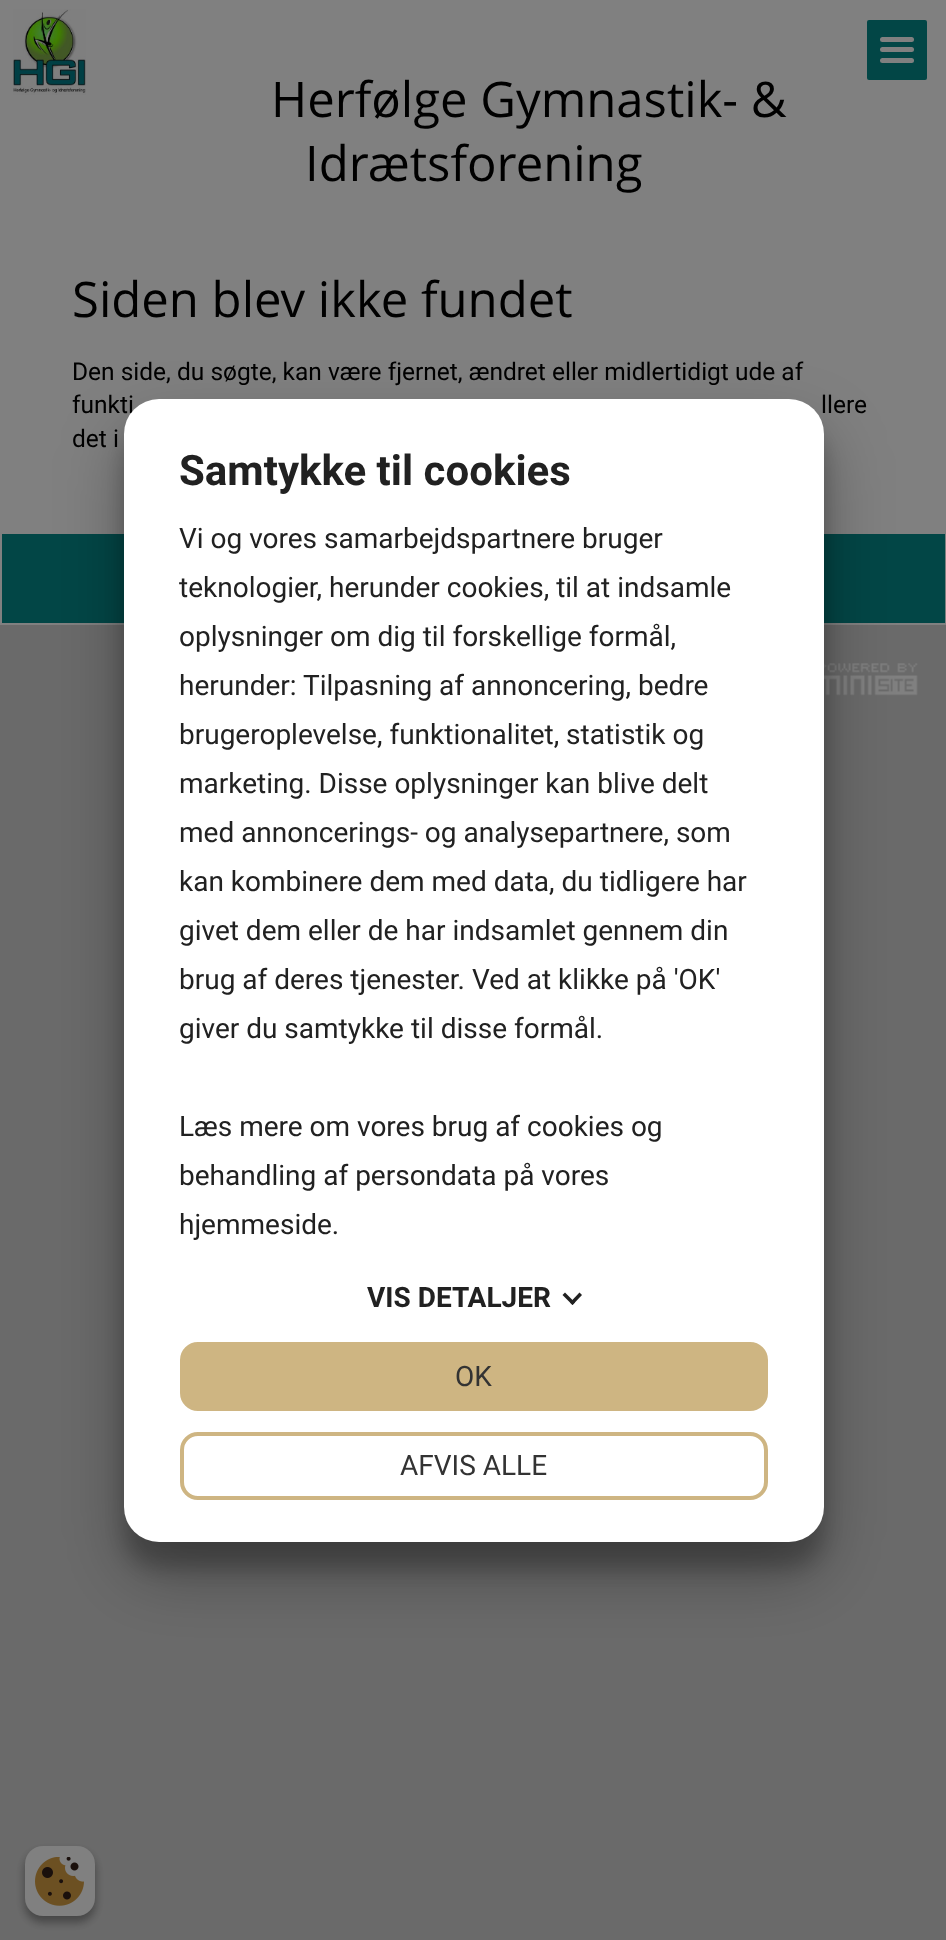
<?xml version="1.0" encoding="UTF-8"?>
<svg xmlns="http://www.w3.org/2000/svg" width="946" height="1940">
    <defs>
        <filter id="blur1" x="-50%" y="-200%" width="200%" height="500%"><feGaussianBlur stdDeviation="10.5"/></filter>
        <filter id="blur2" x="-50%" y="-200%" width="200%" height="500%"><feGaussianBlur stdDeviation="33"/></filter>
        <filter id="blur3" x="-50%" y="-200%" width="200%" height="500%"><feGaussianBlur stdDeviation="5"/></filter>
    </defs>
    <rect width="100%" height="100%" fill="#6A6A6A"/>
    <rect x="0" y="0" width="946" height="625" fill="#808080"/>
    <rect x="866" y="19" width="62" height="62" rx="3" fill="#024646" stroke="#808080" stroke-width="2"/>
    <rect x="880" y="37" width="34" height="5" rx="2.5" fill="#808080"/>
    <rect x="880" y="47" width="34" height="5" rx="2.5" fill="#808080"/>
    <rect x="880" y="58" width="34" height="5" rx="2.5" fill="#808080"/>
    <image x="13" y="9" width="73" height="86" href="img_01.png"/>
    <text x="271" y="117" font-family="Open Sans" font-size="49" fill="#000000">Herfølge Gymnastik- &amp;</text>
    <text x="305" y="181" font-family="Open Sans" font-size="49" fill="#000000">Idrætsforening</text>
    <text x="72" y="317" font-family="Open Sans" font-size="49" fill="#000000">Siden blev ikke fundet</text>
    <text font-family="Roboto" font-size="24.5" fill="#000000">
        <tspan x="72" y="380">Den side, du søgte, kan være fjernet, ændret eller midlertidigt ude af</tspan>
        <tspan x="72" y="413">funkti</tspan>
    </text>
    <text x="821" y="413" font-family="Roboto" font-size="24.5" fill="#000000">llere</text>
    <text x="72" y="447" font-family="Roboto" font-size="24.5" fill="#000000">det i</text>
    <rect x="2" y="534" width="943" height="89" fill="#024646"/>
    <image x="824" y="663" width="94" height="34" href="img_02.png"/>
    <rect x="124" y="425" width="700" height="1143" rx="35" fill="#000000" fill-opacity="0.22" filter="url(#blur1)"/>
    <rect x="124" y="432" width="700" height="1143" rx="35" fill="#000000" fill-opacity="0.3" filter="url(#blur2)"/>
    <rect x="124" y="399" width="700" height="1143" rx="35" fill="#FFFFFF"/>
    <text x="179" y="485" font-family="Roboto" font-size="42" font-weight="700" fill="#212121">Samtykke til cookies</text>
    <text font-family="Roboto" font-size="28" fill="#212121">
        <tspan x="179" y="548">Vi og vores samarbejdspartnere bruger</tspan>
        <tspan x="179" y="597">teknologier, herunder cookies, til at indsamle</tspan>
        <tspan x="179" y="646">oplysninger om dig til forskellige formål,</tspan>
        <tspan x="179" y="695">herunder: Tilpasning af annoncering, bedre</tspan>
        <tspan x="179" y="744">brugeroplevelse, funktionalitet, statistik og</tspan>
        <tspan x="179" y="793">marketing. Disse oplysninger kan blive delt</tspan>
        <tspan x="179" y="842">med annoncerings- og analysepartnere, som</tspan>
        <tspan x="179" y="891">kan kombinere dem med data, du tidligere har</tspan>
        <tspan x="179" y="940">givet dem eller de har indsamlet gennem din</tspan>
        <tspan x="179" y="989">brug af deres tjenester. Ved at klikke på 'OK'</tspan>
        <tspan x="179" y="1038">giver du samtykke til disse formål.</tspan>
    </text>
    <text font-family="Roboto" font-size="28" fill="#212121">
        <tspan x="179" y="1136">Læs mere om vores brug af cookies og</tspan>
        <tspan x="179" y="1185">behandling af persondata på vores</tspan>
        <tspan x="179" y="1234">hjemmeside.</tspan>
    </text>
    <text x="367" y="1307" font-family="Roboto" font-size="28" font-weight="700" fill="#212121">VIS DETALJER</text>
    <path d="M 579.5 1292.5 L 582 1295 L 572.5 1305 L 570 1302.5 Z" fill="#212121"/>
    <path d="M 565 1292.5 L 575 1302.5 L 572.5 1305 L 562.5 1295 Z" fill="#212121"/>
    <rect x="182" y="1344" width="584" height="65" rx="16" fill="#CEB582" stroke="#CEB582" stroke-width="4"/>
    <text x="455" y="1386" font-family="Roboto" font-size="28" fill="#333333">OK</text>
    <rect x="182" y="1434" width="584" height="64" rx="16" fill="none" stroke="#CEB582" stroke-width="4"/>
    <text x="400" y="1475" font-family="Roboto" font-size="28" fill="#333333">AFVIS ALLE</text>
    <rect x="25" y="1852" width="70" height="70" rx="18" fill="#000000" fill-opacity="0.23" filter="url(#blur3)"/>
    <rect x="25" y="1852" width="70" height="70" rx="18" fill="#000000" fill-opacity="0.16" filter="url(#blur3)"/>
    <rect x="25" y="1846" width="70" height="70" rx="18" fill="#808080"/>
    <image x="35" y="1857" width="49" height="49" href="img_03.png"/>
</svg>
